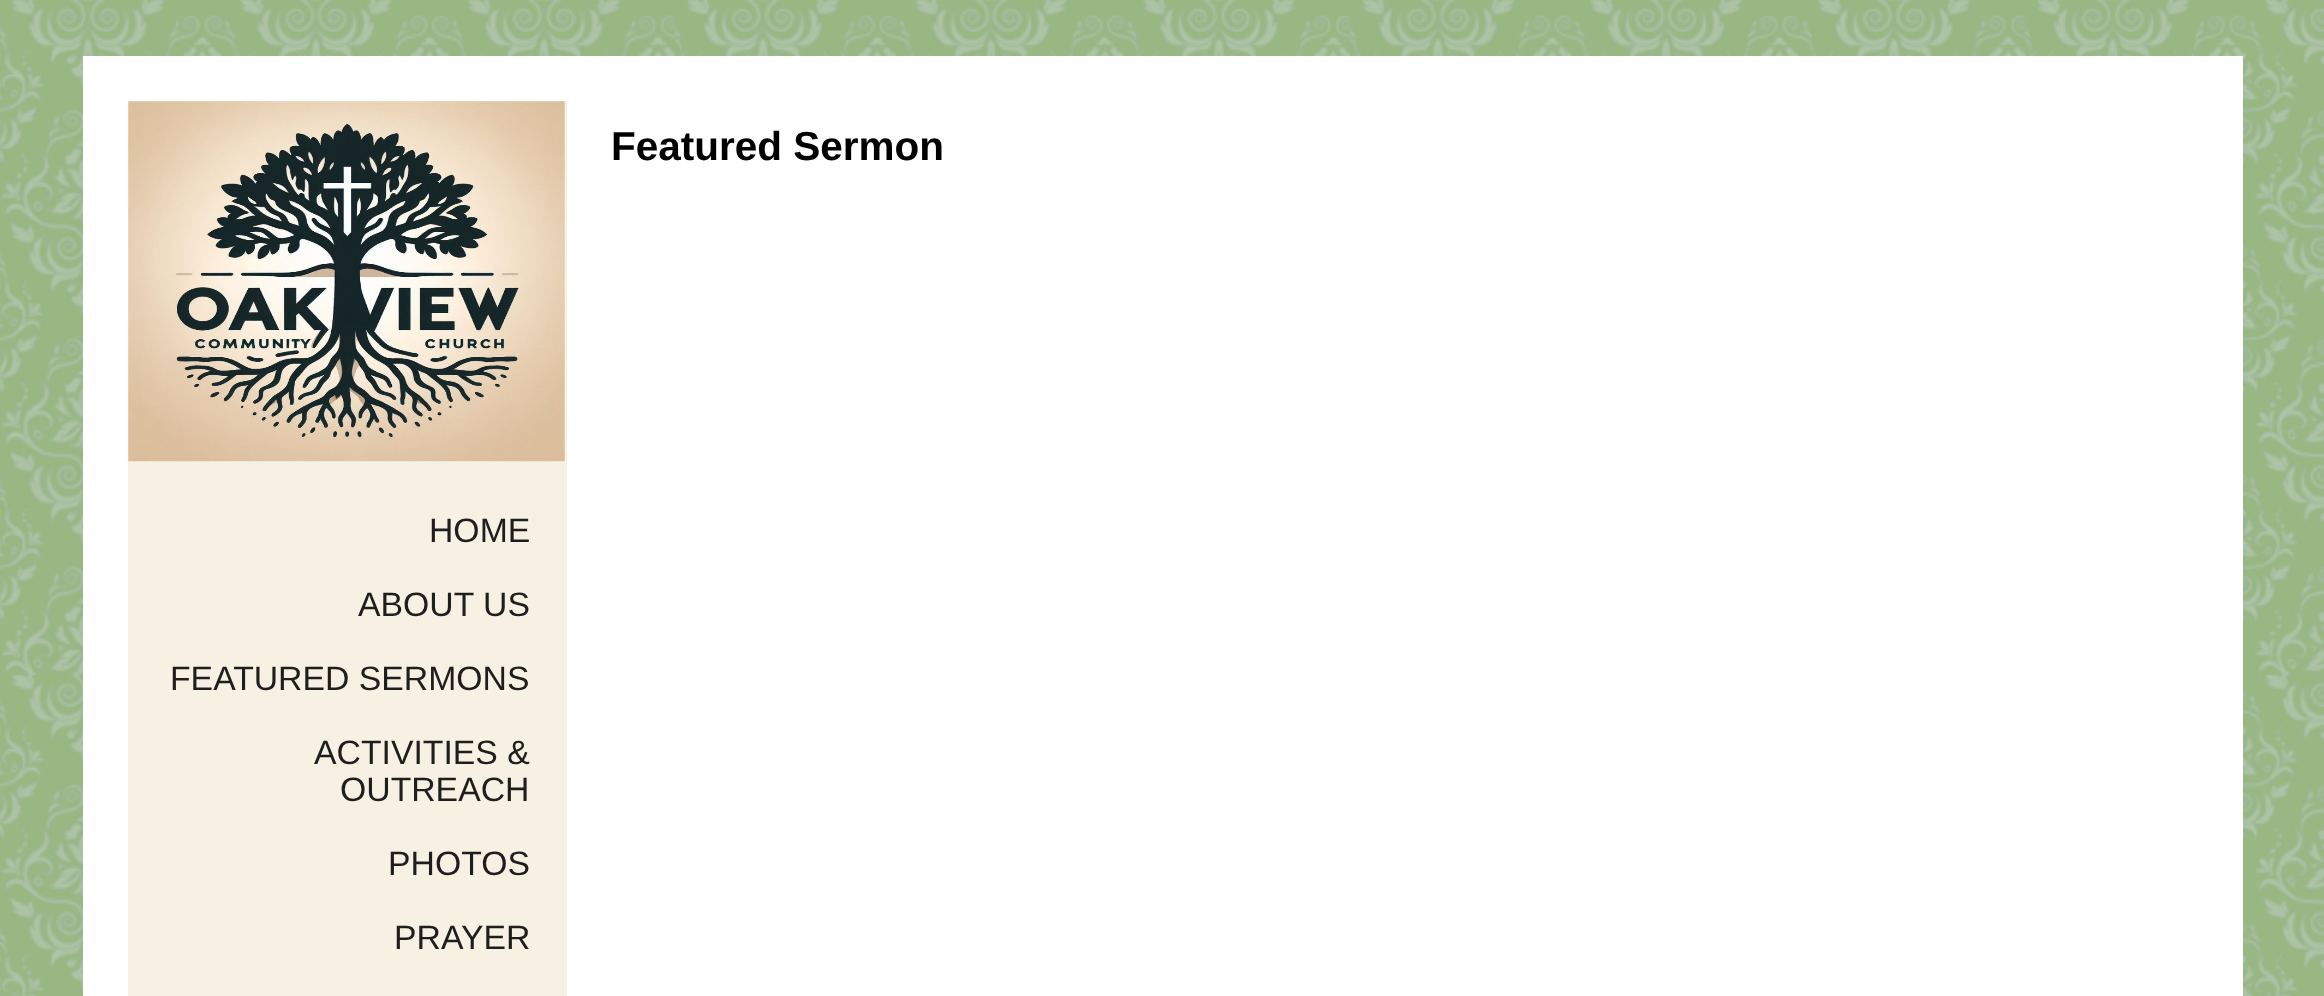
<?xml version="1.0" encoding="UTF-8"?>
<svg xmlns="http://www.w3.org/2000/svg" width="2324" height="996">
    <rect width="100%" height="100%" fill="#99B783"/>
    <image x="0" y="0" width="2324" height="996" href="img_01.png"/>
    <rect x="83" y="56" width="2160" height="940" fill="#FFFFFF"/>
    <rect x="128" y="101" width="439" height="895" fill="#F7F1E3"/>
    <text x="611" y="160" font-family="Liberation Sans" font-size="40.5" font-weight="700" fill="#000000">Featured Sermon</text>
    <image x="128" y="101" width="437" height="361" href="img_02.png"/>
    <text x="429" y="542" font-family="Liberation Sans" font-size="33.75" fill="#1E1E1E">HOME</text>
    <text x="358" y="616" font-family="Liberation Sans" font-size="33.75" fill="#1E1E1E">ABOUT US</text>
    <text x="170" y="690" font-family="Liberation Sans" font-size="33.75" fill="#1E1E1E">FEATURED SERMONS</text>
    <text x="314" y="764" font-family="Liberation Sans" font-size="33.75" fill="#1E1E1E">ACTIVITIES &amp;</text>
    <text x="340" y="801" font-family="Liberation Sans" font-size="33.75" fill="#1E1E1E">OUTREACH</text>
    <text x="388" y="875" font-family="Liberation Sans" font-size="33.75" fill="#1E1E1E">PHOTOS</text>
    <text x="394" y="949" font-family="Liberation Sans" font-size="33.75" fill="#1E1E1E">PRAYER</text>
</svg>
